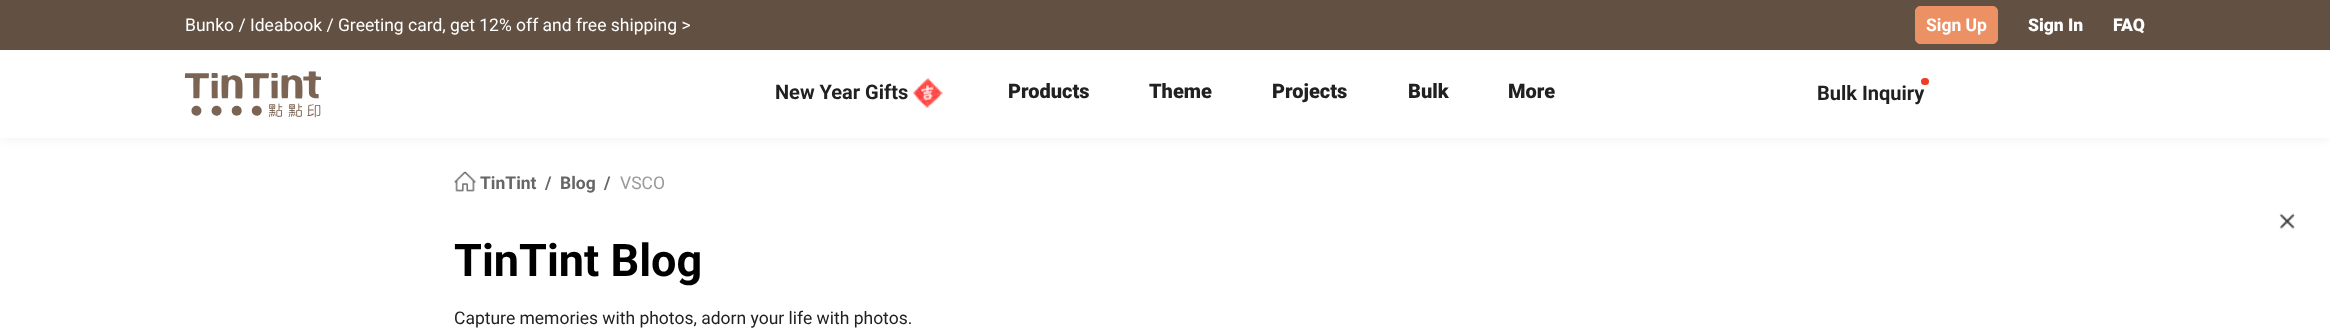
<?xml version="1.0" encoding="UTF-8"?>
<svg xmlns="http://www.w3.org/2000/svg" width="2330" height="328">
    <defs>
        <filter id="blur1" x="-50%" y="-200%" width="200%" height="500%"><feGaussianBlur stdDeviation="5"/></filter>
    </defs>
    <rect width="100%" height="100%" fill="#FFFFFF"/>
    <rect x="0" y="0" width="2330" height="50" fill="#625043"/>
    <text x="185" y="31" font-family="Roboto" font-size="17.5" fill="#FFFFFF">Bunko / Ideabook / Greeting card, get 12% off and free shipping &gt;</text>
    <rect x="1915.5" y="6.5" width="82" height="37" rx="4.5" fill="#EB9164" stroke="#EB9164"/>
    <text x="1926" y="31" font-family="Roboto" font-size="17.5" font-weight="700" fill="#FFFFFF">Sign Up</text>
    <text x="2028" y="31" font-family="Roboto" font-size="17.5" font-weight="900" fill="#FFFFFF">Sign In</text>
    <text x="2113" y="31" font-family="Roboto" font-size="17.5" font-weight="900" fill="#FFFFFF">FAQ</text>
    <rect x="0" y="54" width="2330" height="87" fill="#000000" fill-opacity="0.04" filter="url(#blur1)"/>
    <rect x="0" y="51" width="2330" height="87" fill="#FFFFFF"/>
    <image x="185" y="71" width="136" height="47" href="img_01.png"/>
    <text x="775" y="99" font-family="Roboto" font-size="20" font-weight="700" fill="#212121">New Year Gifts</text>
    <image x="912" y="77" width="31" height="31" href="img_02.png"/>
    <text x="1008" y="98" font-family="Roboto" font-size="20" font-weight="900" fill="#212121">Products</text>
    <text x="1149" y="98" font-family="Roboto" font-size="20" font-weight="900" fill="#212121">Theme</text>
    <text x="1272" y="98" font-family="Roboto" font-size="20" font-weight="900" fill="#212121">Projects</text>
    <text x="1408" y="98" font-family="Roboto" font-size="20" font-weight="900" fill="#212121">Bulk</text>
    <text x="1508" y="98" font-family="Roboto" font-size="20" font-weight="900" fill="#212121">More</text>
    <rect x="1921" y="78" width="8" height="7" rx="3.5" fill="#EB3E24"/>
    <text x="1817" y="100" font-family="Roboto" font-size="20" font-weight="700" fill="#212121">Bulk Inquiry</text>
    <image x="454" y="171" width="23" height="21" href="img_03.png"/>
    <text x="480" y="189" font-family="Roboto" font-size="17.5" font-weight="700" fill="#666666">TinTint</text>
    <text x="545" y="189" font-family="Roboto" font-size="17.5" font-weight="700" fill="#666666">/</text>
    <text x="560" y="189" font-family="Roboto" font-size="17.5" font-weight="700" fill="#666666">Blog</text>
    <text x="604" y="189" font-family="Roboto" font-size="17.5" font-weight="700" fill="#666666">/</text>
    <text x="620" y="189" font-family="Roboto" font-size="17.5" fill="#999999">VSCO</text>
    <image x="2279" y="213" width="16" height="16" href="img_04.png"/>
    <text x="454" y="276" font-family="Roboto" font-size="45" font-weight="700" fill="#000000">TinTint Blog</text>
    <text x="454" y="324" font-family="Roboto" font-size="17.5" fill="#212121">Capture memories with photos, adorn your life with photos.</text>
</svg>
